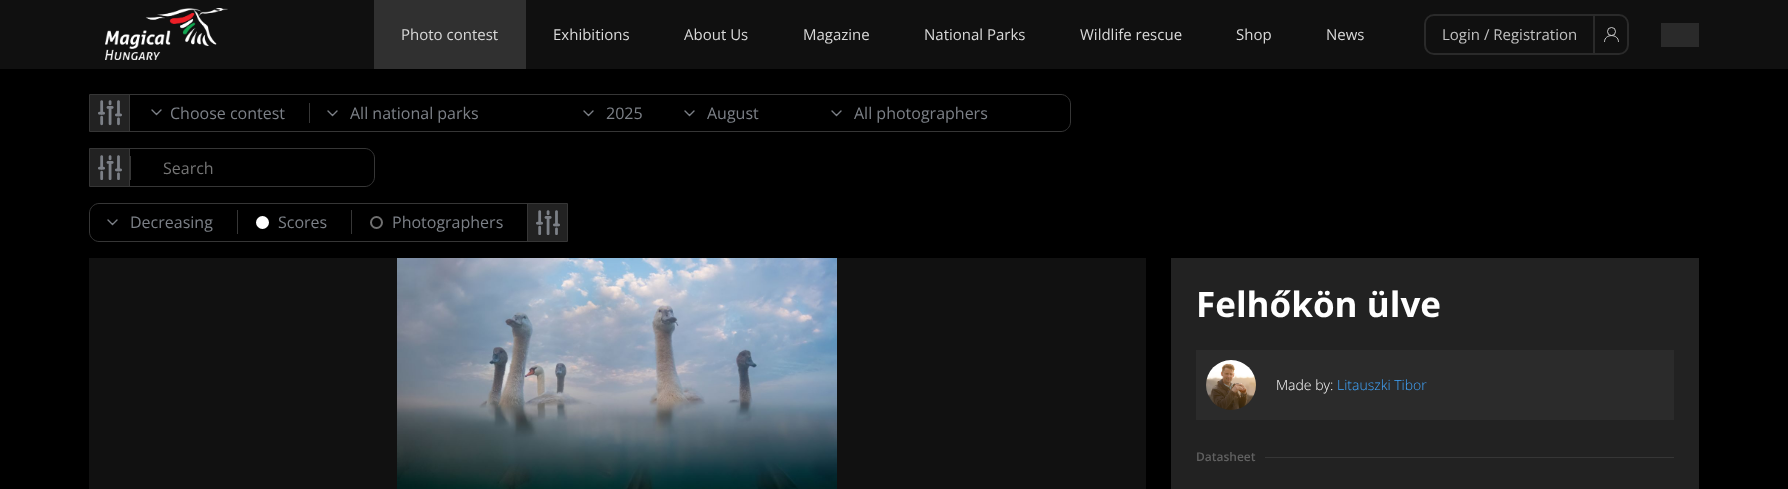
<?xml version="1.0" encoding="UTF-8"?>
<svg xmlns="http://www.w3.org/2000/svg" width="1788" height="489">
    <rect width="100%" height="100%" fill="#000000"/>
    <rect x="0" y="0" width="1788" height="69" fill="#101010"/>
    <image x="105" y="8" width="123" height="52" href="img_01.png"/>
    <rect x="374" y="0" width="152" height="69" fill="#303030"/>
    <text x="401" y="40" font-family="Open Sans" font-size="15" fill="#D9D9D9">Photo contest</text>
    <text x="553" y="40" font-family="Open Sans" font-size="15" fill="#D9D9D9">Exhibitions</text>
    <text x="684" y="40" font-family="Open Sans" font-size="15" fill="#D9D9D9">About Us</text>
    <text x="803" y="40" font-family="Open Sans" font-size="15" fill="#D9D9D9">Magazine</text>
    <text x="924" y="40" font-family="Open Sans" font-size="15" fill="#D9D9D9">National Parks</text>
    <text x="1080" y="40" font-family="Open Sans" font-size="15" fill="#D9D9D9">Wildlife rescue</text>
    <text x="1236" y="40" font-family="Open Sans" font-size="15" fill="#D9D9D9">Shop</text>
    <text x="1326" y="40" font-family="Open Sans" font-size="15" fill="#D9D9D9">News</text>
    <rect x="1425" y="15" width="203" height="39" rx="9" fill="none" stroke="#2A2A2A" stroke-width="2"/>
    <rect x="1593" y="16" width="2" height="37" fill="#2A2A2A"/>
    <text x="1442" y="40" font-family="Open Sans" font-size="15" fill="#C1C1C1">Login / Registration</text>
    <circle cx="1611.5" cy="31.5" r="4" fill="none" stroke="#DCDCDC" stroke-width="0.9"/>
    <path d="M 1618.5 41.5 C 1618.5 33.5 1604.5 33.5 1604.5 41.5" fill="none" stroke="#DCDCDC" stroke-width="0.9" stroke-linecap="round" stroke-linejoin="round"/>
    <rect x="1661" y="23" width="38" height="24" fill="#2A2A2A"/>
    <path d="M 89.5 94.5 H 1061 C 1066 94.5 1070.5 99 1070.5 104 V 122 C 1070.5 127 1066 131.5 1061 131.5 H 89.5 Z" fill="none" stroke="#363636"/>
    <rect x="90" y="95" width="39" height="36" fill="#222222"/>
    <image x="98" y="100" width="24" height="26" href="img_02.png"/>
    <rect x="129" y="95" width="1" height="36" fill="#363636"/>
    <rect x="309" y="103" width="1" height="20" fill="#363636"/>
    <path d="M 152 110 L 156.5 114.5 L 161 110" fill="none" stroke="#7C8087" stroke-width="1.4" stroke-linecap="round" stroke-linejoin="round"/>
    <text x="170" y="119" font-family="Open Sans" font-size="16" fill="#7C8087">Choose contest</text>
    <path d="M 328 111 L 332.5 115.5 L 337 111" fill="none" stroke="#7C8087" stroke-width="1.4" stroke-linecap="round" stroke-linejoin="round"/>
    <text x="350" y="119" font-family="Open Sans" font-size="16" fill="#7C8087">All national parks</text>
    <path d="M 584 111 L 588.5 115.5 L 593 111" fill="none" stroke="#7C8087" stroke-width="1.4" stroke-linecap="round" stroke-linejoin="round"/>
    <text x="606" y="119" font-family="Open Sans" font-size="16" fill="#7C8087">2025</text>
    <path d="M 685 111 L 689.5 115.5 L 694 111" fill="none" stroke="#7C8087" stroke-width="1.4" stroke-linecap="round" stroke-linejoin="round"/>
    <text x="707" y="119" font-family="Open Sans" font-size="16" fill="#7C8087">August</text>
    <path d="M 832 111 L 836.5 115.5 L 841 111" fill="none" stroke="#7C8087" stroke-width="1.4" stroke-linecap="round" stroke-linejoin="round"/>
    <text x="854" y="119" font-family="Open Sans" font-size="16" fill="#7C8087">All photographers</text>
    <path d="M 89.5 148.5 H 365 C 370 148.5 374.5 153 374.5 158 V 177 C 374.5 182 370 186.5 365 186.5 H 89.5 Z" fill="none" stroke="#363636"/>
    <rect x="90" y="149" width="39" height="37" fill="#222222"/>
    <image x="98" y="155" width="24" height="25" href="img_03.png"/>
    <rect x="129" y="149" width="1" height="37" fill="#363636"/>
    <rect x="130" y="156" width="1" height="24" fill="#363636"/>
    <text x="163" y="174" font-family="Open Sans" font-size="16" fill="#757575">Search</text>
    <path d="M 99 203.5 H 567.5 V 241.5 H 99 C 94 241.5 89.5 237 89.5 232 V 213 C 89.5 208 94 203.5 99 203.5 Z" fill="none" stroke="#363636"/>
    <path d="M 108 220 L 112.5 224.5 L 117 220" fill="none" stroke="#7C8087" stroke-width="1.4" stroke-linecap="round" stroke-linejoin="round"/>
    <text x="130" y="228" font-family="Open Sans" font-size="16" fill="#7C8087">Decreasing</text>
    <rect x="237" y="210" width="1" height="24" fill="#363636"/>
    <circle cx="262.5" cy="222.5" r="5.5" fill="#FFFFFF" stroke="#FFFFFF" stroke-width="2"/>
    <text x="278" y="228" font-family="Open Sans" font-size="16" fill="#7C8087">Scores</text>
    <rect x="351" y="210" width="1" height="24" fill="#363636"/>
    <circle cx="376.5" cy="222.5" r="5.5" fill="none" stroke="#707070" stroke-width="2"/>
    <text x="392" y="228" font-family="Open Sans" font-size="16" fill="#7C8087">Photographers</text>
    <rect x="528" y="204" width="39" height="37" fill="#222222"/>
    <image x="536" y="210" width="24" height="25" href="img_03.png"/>
    <rect x="527" y="204" width="1" height="37" fill="#363636"/>
    <rect x="89" y="258" width="1057" height="231" fill="#111111"/>
    <image x="397" y="258" width="440" height="231" href="img_04.png"/>
    <rect x="1171" y="258" width="528" height="231" fill="#222222"/>
    <text x="1196" y="317" font-family="Open Sans" font-size="35" font-weight="700" fill="#FFFFFF">Felhőkön ülve</text>
    <rect x="1196" y="350" width="478" height="70" fill="#2B2B2B"/>
    <image x="1206" y="360" width="50" height="50" href="img_05.png"/>
    <text x="1276" y="390" font-family="Open Sans" font-size="14" font-weight="300" fill="#FFFFFF">Made by:</text>
    <text x="1337" y="390" font-family="Open Sans" font-size="14" font-weight="300" fill="#40A6FF">Litauszki Tibor</text>
    <text x="1196" y="461" font-family="Open Sans" font-size="12" font-weight="600" fill="#616161">Datasheet</text>
    <rect x="1265" y="457" width="409" height="1" fill="#363636"/>
</svg>
